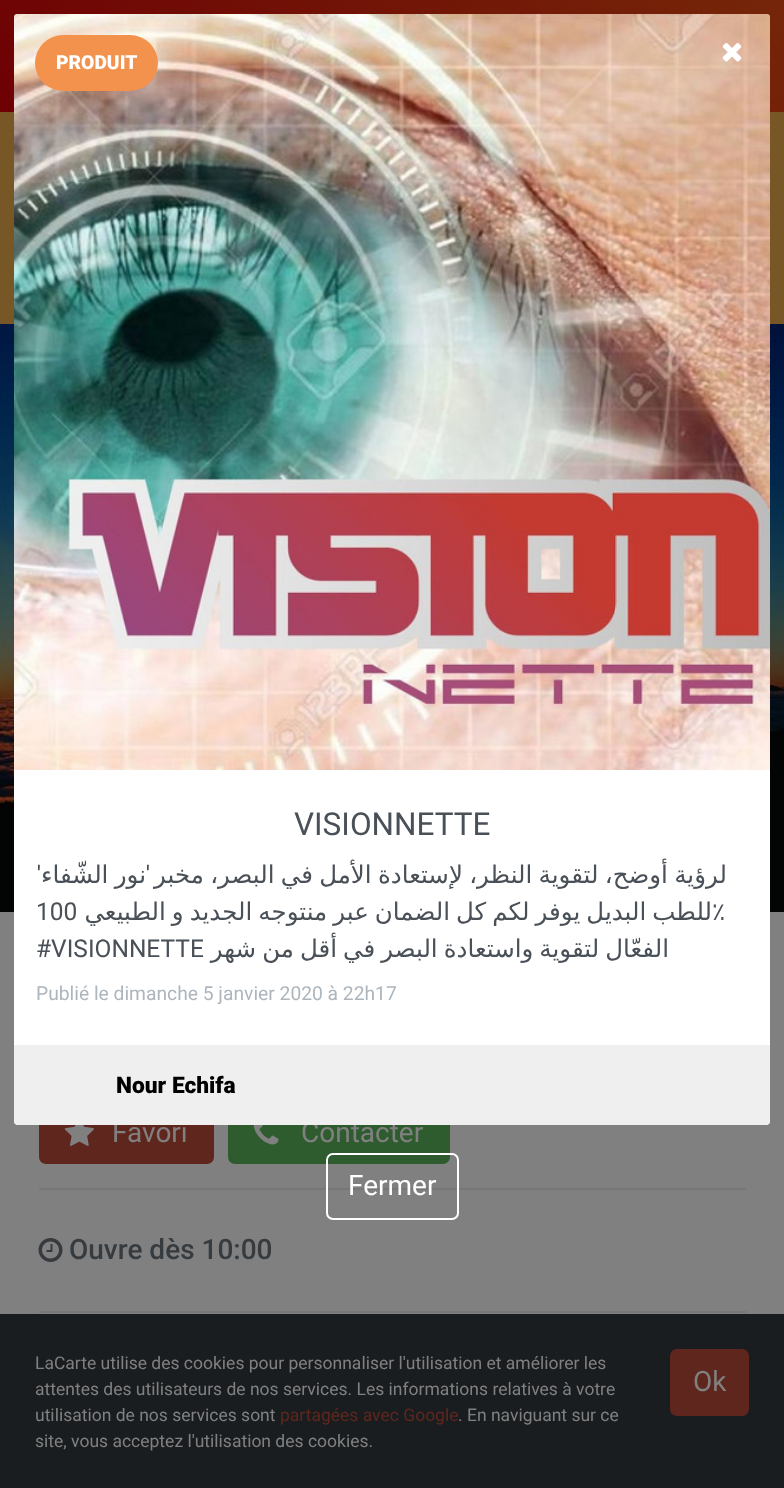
<?xml version="1.0" encoding="UTF-8"?>
<svg xmlns="http://www.w3.org/2000/svg" width="784" height="1488">
    <defs>
        <linearGradient id="g1" gradientUnits="userSpaceOnUse" x1="168" y1="280" x2="616" y2="-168"><stop offset="0" stop-color="#6E0004"/><stop offset="1" stop-color="#752609"/></linearGradient>
        <clipPath id="clip1"><rect x="14" y="14" width="756" height="1111" rx="4"/></clipPath>
    </defs>
    <rect width="100%" height="100%" fill="#808080"/>
    <rect x="0" y="0" width="784" height="112" fill="url(#g1)"/>
    <rect x="0" y="112" width="784" height="212" fill="#785727"/>
    <image x="0" y="324" width="784" height="588" href="img_03.png"/>
    <rect x="39" y="1104" width="175" height="60" rx="7" fill="#5F261D"/>
    <text x="112" y="1142" font-family="Roboto" font-size="28" fill="#808080">Favori</text>
    <rect x="228" y="1104" width="222" height="60" rx="7" fill="#2E5C2E"/>
    <text x="301" y="1142" font-family="Roboto" font-size="28" fill="#808080">Contacter</text>
    <rect x="14" y="14" width="756" height="1111" rx="4" fill="#FFFFFF"/>
    <image x="14" y="14" width="756" height="756" href="img_02.png"/>
    <image x="722" y="43" width="20" height="19" href="img_01.png"/>
    <rect x="35" y="35" width="123" height="56" rx="28" fill="#F3924C"/>
    <text x="56" y="69" font-family="Roboto" font-size="19.25" font-weight="900" fill="#FFFFFF">PRODUIT</text>
    <text x="294" y="835" font-family="Roboto" font-size="31.5" fill="#495057">VISIONNETTE</text>
    <text x="41" y="883" font-family="Roboto" font-size="24.5" direction="rtl" fill="#495057">'</text>
    <text x="146" y="883" word-spacing="-1.5" font-family="DejaVu Sans" font-size="24.5" direction="rtl" fill="#495057">نور الشّفاء</text>
    <text x="150" y="883" font-family="Roboto" font-size="24.5" direction="rtl" fill="#495057">'</text>
    <text x="727" y="883" word-spacing="-1.5" font-family="DejaVu Sans" font-size="24.5" direction="rtl" fill="#495057">لرؤية أوضح، لتقوية النظر، لإستعادة الأمل في البصر، مخبر</text>
    <text x="36" y="920" font-family="Roboto" font-size="24.5" fill="#495057">100</text>
    <text x="712" y="920" word-spacing="-1.75" font-family="DejaVu Sans" font-size="24.5" direction="rtl" fill="#495057">للطب البديل يوفر لكم كل الضمان عبر منتوجه الجديد و الطبيعي</text>
    <text x="712" y="920" font-family="DejaVu Sans" font-size="24.5" fill="#495057">٪</text>
    <text x="36" y="957" font-family="Roboto" font-size="24.5" fill="#495057">#VISIONNETTE</text>
    <text x="669" y="957" word-spacing="-1.75" font-family="DejaVu Sans" font-size="24.5" direction="rtl" fill="#495057">الفعّال لتقوية واستعادة البصر في أقل من شهر</text>
    <text x="36" y="1000" font-family="Roboto" font-size="19.25" fill="#ADB5BD">Publié le dimanche 5 janvier 2020 à 22h17</text>
    <g clip-path="url(#clip1)">
        <path d="M 14 1045 H 770 V 1120 C 770 1123 768 1125 765 1125 H 19 C 16 1125 14 1123 14 1120 Z" fill="#EFEFEF"/>
    </g>
    <text x="116" y="1093" font-family="Roboto" font-size="22.75" font-weight="900" fill="#000000">Nour Echifa</text>
    <rect x="39" y="1188" width="707" height="2" fill="#777777"/>
    <rect x="327" y="1154" width="131" height="65" rx="6" fill="none" stroke="#FFFFFF" stroke-width="2"/>
    <text x="348" y="1195" font-family="Roboto" font-size="28" fill="#FFFFFF">Fermer</text>
    <image x="64" y="1125" width="30" height="21" href="img_04.png"/>
    <image x="253" y="1125" width="26" height="20" href="img_05.png"/>
    <rect x="39" y="1311" width="707" height="2" fill="#777777"/>
    <image x="38" y="1238" width="25" height="24" href="img_06.png"/>
    <text x="69" y="1259" font-family="Roboto" font-size="28" font-weight="500" fill="#363B3F">Ouvre dès 10:00</text>
    <rect x="0" y="1314" width="784" height="174" fill="#1A1D20"/>
    <text font-family="Roboto" font-size="17.5" fill="#808080">
        <tspan x="35" y="1369">LaCarte utilise des cookies pour personnaliser l'utilisation et améliorer les</tspan>
        <tspan x="35" y="1395">attentes des utilisateurs de nos services. Les informations relatives à votre</tspan>
        <tspan x="35" y="1421">utilisation de nos services sont</tspan>
    </text>
    <text x="280" y="1421" font-family="Roboto" font-size="17.5" fill="#5F261D">partagées avec Google</text>
    <text x="458" y="1421" font-family="Roboto" font-size="17.5" fill="#808080">. En naviguant sur ce</text>
    <text x="35" y="1447" font-family="Roboto" font-size="17.5" fill="#808080">site, vous acceptez l'utilisation des cookies.</text>
    <rect x="671" y="1350" width="77" height="65" rx="6" fill="#5F261D" stroke="#5F261D" stroke-width="2"/>
    <text x="693" y="1391" font-family="Roboto" font-size="28" fill="#808080">Ok</text>
</svg>
